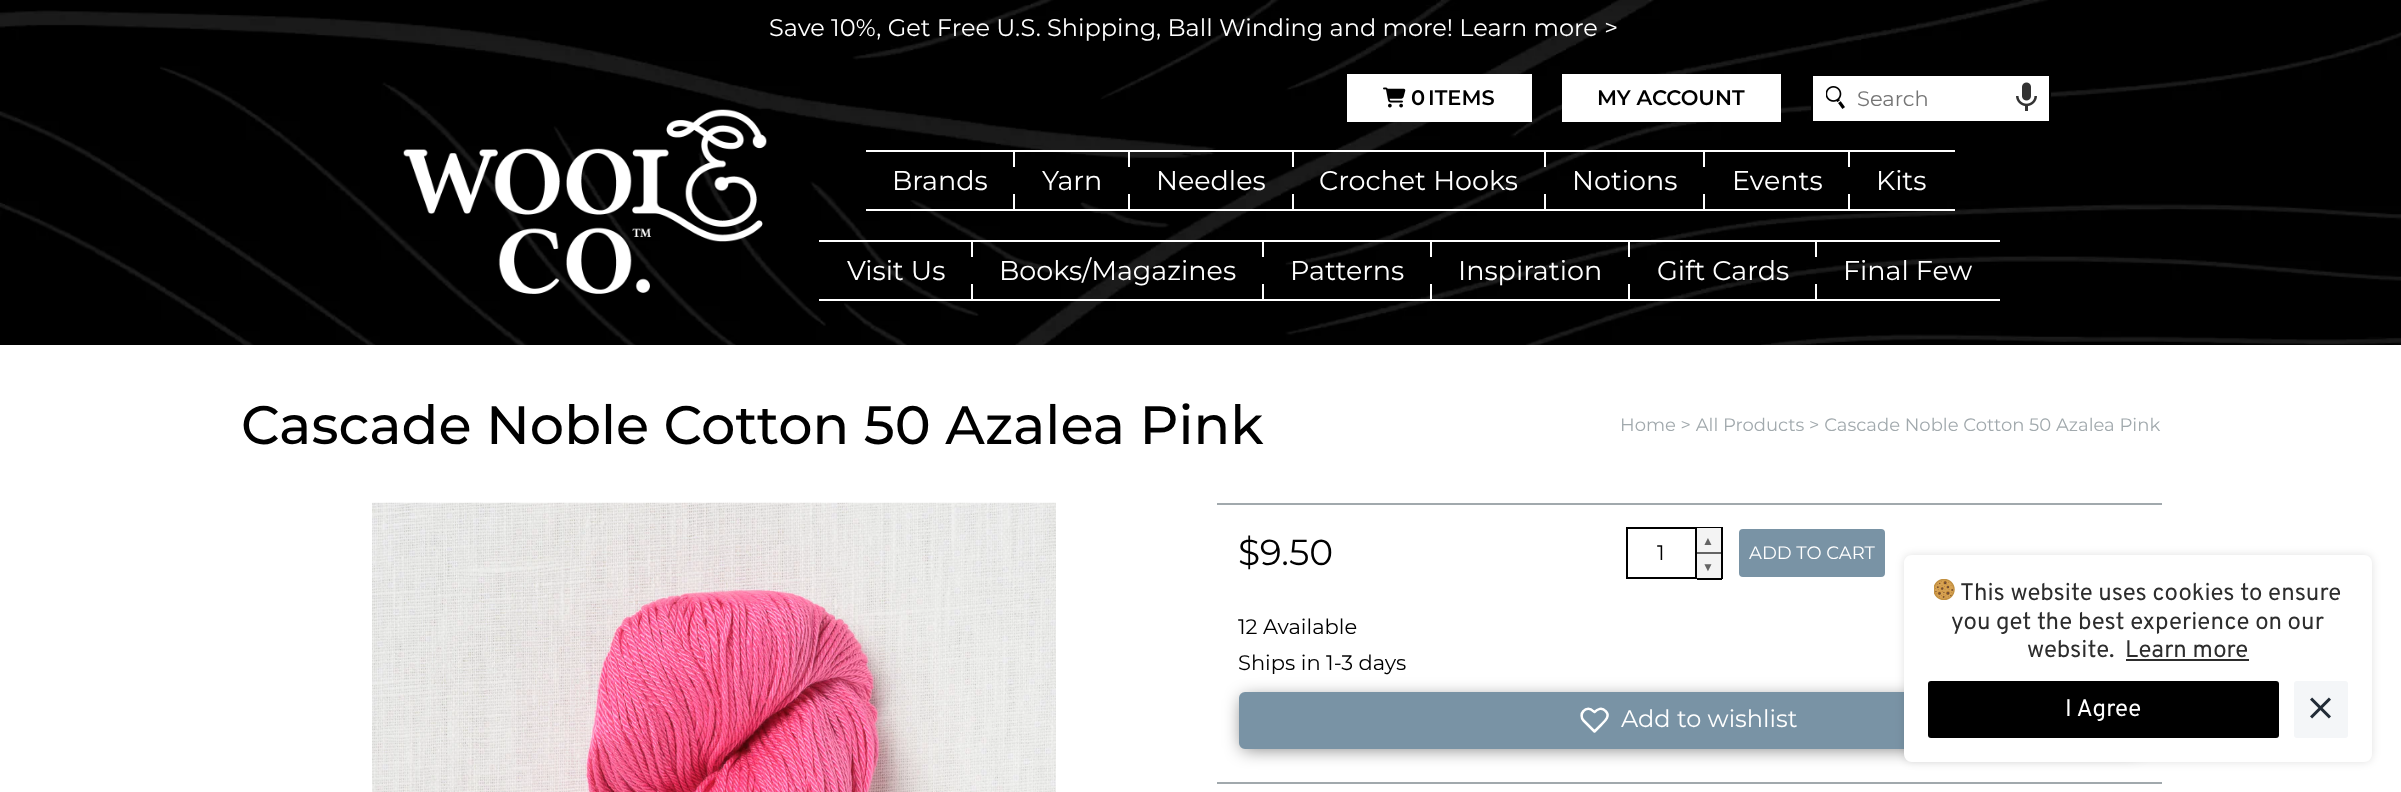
<?xml version="1.0" encoding="UTF-8"?>
<svg xmlns="http://www.w3.org/2000/svg" width="2401" height="792">
    <defs>
        <filter id="blur1" x="-50%" y="-200%" width="200%" height="500%"><feGaussianBlur stdDeviation="9"/></filter>
        <clipPath id="clip1"><path d="M 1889 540 H 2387 V 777 H 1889 Z M 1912 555 H 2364 C 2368.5 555 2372 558.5 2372 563 V 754 C 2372 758.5 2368.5 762 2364 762 H 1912 C 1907.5 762 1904 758.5 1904 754 V 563 C 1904 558.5 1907.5 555 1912 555 Z" clip-rule="evenodd"/></clipPath>
        <filter id="blur2" x="-50%" y="-200%" width="200%" height="500%"><feGaussianBlur stdDeviation="4.5"/></filter>
    </defs>
    <rect width="100%" height="100%" fill="#FFFFFF"/>
    <image x="0" y="0" width="2401" height="345" href="img_01.png"/>
    <text x="769" y="36" font-family="Montserrat" font-size="24" fill="#FFFFFF">Save 10%, Get Free U.S. Shipping, Ball Winding and more! Learn more &gt;</text>
    <rect x="1347" y="74" width="185" height="48" fill="#FFFFFF"/>
    <image x="1383" y="87" width="23" height="21" href="img_02.png"/>
    <text x="1411" y="105" font-family="Montserrat" font-size="21" font-weight="600" fill="#000000">0</text>
    <text x="1428" y="105" font-family="Montserrat" font-size="21" font-weight="600" fill="#000000">ITEMS</text>
    <rect x="1562" y="74" width="219" height="48" fill="#FFFFFF"/>
    <text x="1597" y="105" font-family="Montserrat" font-size="21" font-weight="600" fill="#000000">MY ACCOUNT</text>
    <rect x="1812" y="75" width="238" height="47" fill="#FFFFFF" stroke="#000000" stroke-width="2"/>
    <image x="1826" y="86" width="19" height="23" href="img_03.png"/>
    <text x="1857" y="106" font-family="Montserrat" font-size="21" fill="#757575">Search</text>
    <image x="2016" y="82" width="21" height="29" href="img_04.png"/>
    <image x="403" y="109" width="364" height="185" href="img_05.png"/>
    <rect x="866" y="150" width="1089" height="2" fill="#FFFFFF"/>
    <rect x="866" y="209" width="1089" height="2" fill="#FFFFFF"/>
    <rect x="1013" y="152" width="2" height="15" fill="#FFFFFF"/>
    <text x="892" y="190" font-family="Montserrat" font-size="27" fill="#FFFFFF">Brands</text>
    <rect x="1013" y="194" width="2" height="15" fill="#FFFFFF"/>
    <rect x="1128" y="152" width="2" height="15" fill="#FFFFFF"/>
    <text x="1042" y="190" font-family="Montserrat" font-size="27" fill="#FFFFFF">Yarn</text>
    <rect x="1128" y="194" width="2" height="15" fill="#FFFFFF"/>
    <rect x="1292" y="152" width="2" height="15" fill="#FFFFFF"/>
    <text x="1156" y="190" font-family="Montserrat" font-size="27" fill="#FFFFFF">Needles</text>
    <rect x="1292" y="194" width="2" height="15" fill="#FFFFFF"/>
    <rect x="1544" y="152" width="2" height="15" fill="#FFFFFF"/>
    <text x="1319" y="190" font-family="Montserrat" font-size="27" fill="#FFFFFF">Crochet Hooks</text>
    <rect x="1544" y="194" width="2" height="15" fill="#FFFFFF"/>
    <rect x="1703" y="152" width="2" height="15" fill="#FFFFFF"/>
    <text x="1572" y="190" font-family="Montserrat" font-size="27" fill="#FFFFFF">Notions</text>
    <rect x="1703" y="194" width="2" height="15" fill="#FFFFFF"/>
    <rect x="1848" y="152" width="2" height="15" fill="#FFFFFF"/>
    <text x="1732" y="190" font-family="Montserrat" font-size="27" fill="#FFFFFF">Events</text>
    <rect x="1848" y="194" width="2" height="15" fill="#FFFFFF"/>
    <text x="1876" y="190" font-family="Montserrat" font-size="27" fill="#FFFFFF">Kits</text>
    <rect x="819" y="240" width="1181" height="2" fill="#FFFFFF"/>
    <rect x="819" y="299" width="1181" height="2" fill="#FFFFFF"/>
    <rect x="971" y="242" width="2" height="15" fill="#FFFFFF"/>
    <text x="847" y="280" font-family="Montserrat" font-size="27" fill="#FFFFFF">Visit Us</text>
    <rect x="971" y="284" width="2" height="15" fill="#FFFFFF"/>
    <rect x="1262" y="242" width="2" height="15" fill="#FFFFFF"/>
    <text x="999" y="280" font-family="Montserrat" font-size="27" fill="#FFFFFF">Books/Magazines</text>
    <rect x="1262" y="284" width="2" height="15" fill="#FFFFFF"/>
    <rect x="1430" y="242" width="2" height="15" fill="#FFFFFF"/>
    <text x="1290" y="280" font-family="Montserrat" font-size="27" fill="#FFFFFF">Patterns</text>
    <rect x="1430" y="284" width="2" height="15" fill="#FFFFFF"/>
    <rect x="1628" y="242" width="2" height="15" fill="#FFFFFF"/>
    <text x="1458" y="280" font-family="Montserrat" font-size="27" fill="#FFFFFF">Inspiration</text>
    <rect x="1628" y="284" width="2" height="15" fill="#FFFFFF"/>
    <rect x="1815" y="242" width="2" height="15" fill="#FFFFFF"/>
    <text x="1657" y="280" font-family="Montserrat" font-size="27" fill="#FFFFFF">Gift Cards</text>
    <rect x="1815" y="284" width="2" height="15" fill="#FFFFFF"/>
    <text x="1843" y="280" font-family="Montserrat" font-size="27" fill="#FFFFFF">Final Few</text>
    <text x="241" y="444" font-family="Montserrat" font-size="54" font-weight="500" fill="#000000">Cascade Noble Cotton 50 Azalea Pink</text>
    <text x="1620" y="431" font-family="Montserrat" font-size="18" fill="#A1A9AD">Home &gt; All Products &gt; Cascade Noble Cotton 50 Azalea Pink</text>
    <image x="372" y="502" width="684" height="290" href="img_06.png"/>
    <rect x="1217" y="503" width="945" height="2" fill="#A1A9AD"/>
    <rect x="1217" y="782" width="945" height="2" fill="#A1A9AD"/>
    <text x="1238" y="565" font-family="Montserrat" font-size="36" fill="#000000">$9.50</text>
    <rect x="1627" y="528" width="69" height="50" fill="none" stroke="#000000" stroke-width="2"/>
    <text x="1657" y="560" font-family="Montserrat" font-size="21" fill="#000000">1</text>
    <rect x="1697" y="527" width="25" height="1" fill="#000000"/>
    <rect x="1721" y="527" width="2" height="52" fill="#000000"/>
    <rect x="1697" y="578" width="25" height="2" fill="#000000"/>
    <rect x="1697" y="528" width="24" height="24" fill="#F3F3F3"/>
    <text x="1702" y="545" font-family="Liberation Sans" font-size="12" fill="#646464">▲</text>
    <rect x="1697" y="554" width="24" height="24" fill="#F3F3F3"/>
    <rect x="1697" y="552" width="24" height="2" fill="#646464"/>
    <text x="1702" y="571" font-family="Liberation Sans" font-size="12" fill="#646464">▼</text>
    <rect x="1738" y="528" width="148" height="50" rx="5" fill="#7993A5" stroke="#FFFFFF" stroke-width="2"/>
    <text x="1749" y="559" font-family="Montserrat" font-size="18" fill="#FFFFFF">ADD TO CART</text>
    <text font-family="Montserrat" font-size="21" fill="#000000">
        <tspan x="1238" y="634">12 Available</tspan>
        <tspan x="1238" y="670">Ships in 1-3 days</tspan>
    </text>
    <rect x="1242" y="698" width="894" height="51" rx="3" fill="#000000" fill-opacity="0.5" filter="url(#blur1)"/>
    <rect x="1240" y="693" width="898" height="55" rx="5" fill="#7993A5" stroke="#7993A5" stroke-width="2"/>
    <path d="M 1605.5 711 C 1602 707 1597.5 709 1594.5 712 L 1593 711 C 1590.5 708 1586 708 1583.5 711 C 1581 713.5 1581 718 1583.5 720.5 L 1594.5 731.5 L 1601 725 C 1604.5 721.5 1611 716 1605.5 711 Z" fill="none" stroke="#FFFFFF" stroke-width="2.5" stroke-linecap="round" stroke-linejoin="round"/>
    <text x="1621" y="727" font-family="Montserrat" font-size="24" fill="#FFFFFF">Add to wishlist</text>
    <rect x="1904" y="555" width="468" height="207" rx="8" fill="#FFFFFF"/>
    <g clip-path="url(#clip1)">
        <rect x="1904" y="555" width="468" height="207" rx="8" fill="#000000" fill-opacity="0.12" filter="url(#blur2)"/>
    </g>
    <image x="1934" y="579" width="21" height="21" href="img_07.png"/>
    <text x="1960" y="600" font-family="Overpass" font-size="24" fill="#2D2D2D">This website uses cookies to ensure</text>
    <text x="1951" y="629" font-family="Overpass" font-size="24" fill="#2D2D2D">you get the best experience on our</text>
    <text x="2027" y="657" font-family="Overpass" font-size="24" fill="#2D2D2D">website.</text>
    <text x="2125" y="657" font-family="Overpass" font-size="24" fill="#2D2D2D">Learn more</text>
    <rect x="2126" y="659" width="123" height="2" fill="#2D2D2D"/>
    <rect x="1928" y="681" width="351" height="57" rx="3" fill="#000000"/>
    <text x="2065" y="716" font-family="Overpass" font-size="24" fill="#FFFFFF">I Agree</text>
    <rect x="2294" y="681" width="54" height="57" rx="3" fill="#F4F6F8"/>
    <image x="2310" y="697" width="21" height="22" href="img_08.png"/>
</svg>
